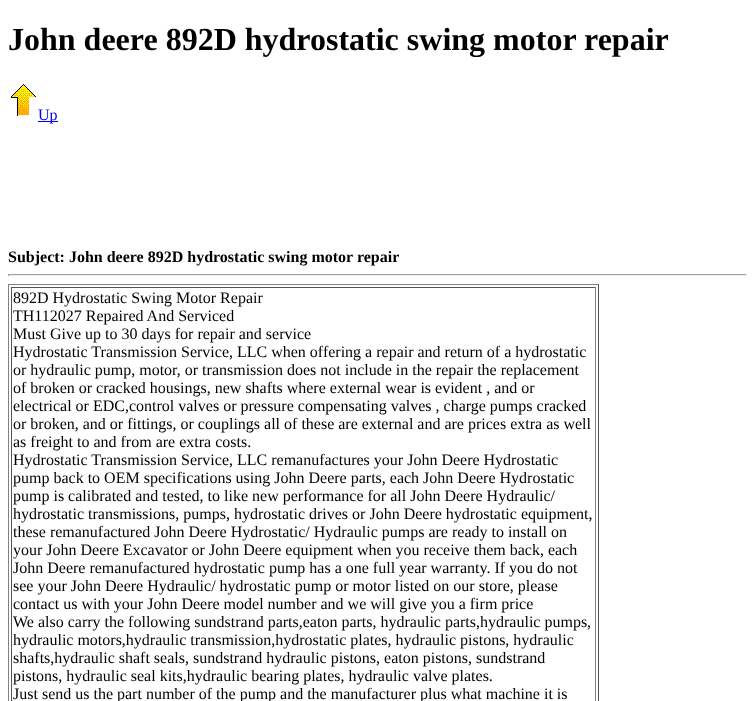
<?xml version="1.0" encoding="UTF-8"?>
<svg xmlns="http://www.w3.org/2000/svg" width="755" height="701">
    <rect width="100%" height="100%" fill="#FFFFFF"/>
    <text x="8" y="50" font-family="Liberation Serif" font-size="32" font-weight="700" fill="#000000">John deere 892D hydrostatic swing motor repair</text>
    <image x="11" y="84" width="25" height="32" href="img_01.png"/>
    <rect x="38" y="121" width="20" height="1" fill="#0000EE"/>
    <text x="38" y="120" font-family="Liberation Serif" font-size="16" fill="#0000EE">Up</text>
    <text x="8" y="262" font-family="Liberation Serif" font-size="16" font-weight="700" fill="#000000">Subject: John deere 892D hydrostatic swing motor repair</text>
    <rect x="8" y="274" width="739" height="1" fill="#9F9F9F"/>
    <rect x="746" y="274" width="1" height="2" fill="#EEEEEE"/>
    <rect x="8" y="275" width="739" height="1" fill="#EEEEEE"/>
    <rect x="8" y="274" width="1" height="2" fill="#9F9F9F"/>
    <rect x="8" y="284" width="591" height="1" fill="#808080"/>
    <rect x="598" y="284" width="1" height="417" fill="#555555"/>
    <rect x="8" y="284" width="1" height="417" fill="#808080"/>
    <rect x="11" y="287" width="585" height="1" fill="#555555"/>
    <rect x="595" y="287" width="1" height="414" fill="#808080"/>
    <rect x="11" y="287" width="1" height="414" fill="#555555"/>
    <text font-family="Liberation Serif" font-size="16" fill="#000000">
        <tspan x="13" y="303">892D Hydrostatic Swing Motor Repair</tspan>
        <tspan x="13" y="321">TH112027 Repaired And Serviced</tspan>
        <tspan x="13" y="339">Must Give up to 30 days for repair and service</tspan>
        <tspan x="13" y="357">Hydrostatic Transmission Service, LLC when offering a repair and return of a hydrostatic</tspan>
        <tspan x="13" y="375">or hydraulic pump, motor, or transmission does not include in the repair the replacement</tspan>
        <tspan x="13" y="393">of broken or cracked housings, new shafts where external wear is evident , and or</tspan>
        <tspan x="13" y="411">electrical or EDC,control valves or pressure compensating valves , charge pumps cracked</tspan>
        <tspan x="13" y="429">or broken, and or fittings, or couplings all of these are external and are prices extra as well</tspan>
        <tspan x="13" y="447">as freight to and from are extra costs.</tspan>
        <tspan x="13" y="465">Hydrostatic Transmission Service, LLC remanufactures your John Deere Hydrostatic</tspan>
        <tspan x="13" y="483">pump back to OEM specifications using John Deere parts, each John Deere Hydrostatic</tspan>
        <tspan x="13" y="501">pump is calibrated and tested, to like new performance for all John Deere Hydraulic/</tspan>
        <tspan x="13" y="519">hydrostatic transmissions, pumps, hydrostatic drives or John Deere hydrostatic equipment,</tspan>
        <tspan x="13" y="537">these remanufactured John Deere Hydrostatic/ Hydraulic pumps are ready to install on</tspan>
        <tspan x="13" y="555">your John Deere Excavator or John Deere equipment when you receive them back, each</tspan>
        <tspan x="13" y="573">John Deere remanufactured hydrostatic pump has a one full year warranty. If you do not</tspan>
        <tspan x="13" y="591">see your John Deere Hydraulic/ hydrostatic pump or motor listed on our store, please</tspan>
        <tspan x="13" y="609">contact us with your John Deere model number and we will give you a firm price</tspan>
        <tspan x="13" y="627">We also carry the following sundstrand parts,eaton parts, hydraulic parts,hydraulic pumps,</tspan>
        <tspan x="13" y="645">hydraulic motors,hydraulic transmission,hydrostatic plates, hydraulic pistons, hydraulic</tspan>
        <tspan x="13" y="663">shafts,hydraulic shaft seals, sundstrand hydraulic pistons, eaton pistons, sundstrand</tspan>
        <tspan x="13" y="681">pistons, hydraulic seal kits,hydraulic bearing plates, hydraulic valve plates.</tspan>
        <tspan x="13" y="699">Just send us the part number of the pump and the manufacturer plus what machine it is</tspan>
    </text>
</svg>
